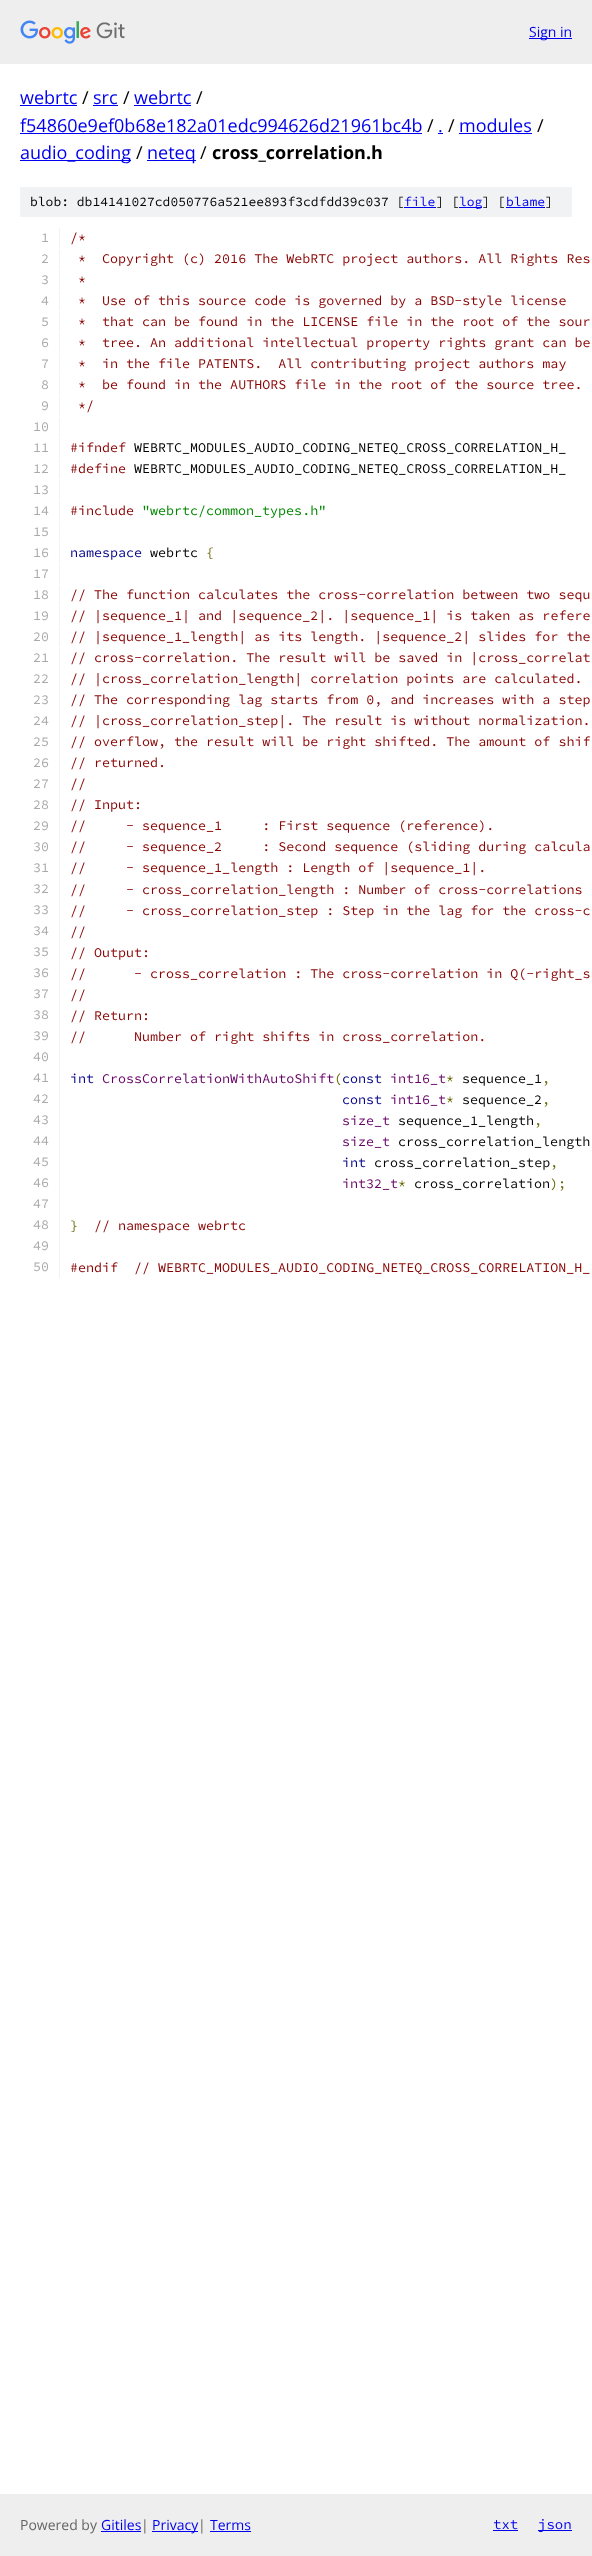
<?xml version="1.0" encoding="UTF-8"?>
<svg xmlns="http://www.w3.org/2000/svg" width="592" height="2556">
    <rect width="100%" height="100%" fill="#FFFFFF"/>
    <rect x="0" y="0" width="592" height="64" fill="#EEEEEE"/>
    <image x="20" y="20" width="105" height="24" href="img_01.png"/>
    <rect x="529" y="38" width="43" height="1" fill="#0000EE"/>
    <text x="529" y="37" font-family="Open Sans" font-size="14" fill="#0000EE">Sign in</text>
    <text x="20" y="104" font-family="Open Sans" font-size="18" fill="#0000EE">webrtc</text>
    <rect x="20" y="105" width="57" height="1" fill="#0000EE"/>
    <text x="82" y="104" font-family="Open Sans" font-size="18" fill="#000000">/</text>
    <text x="93" y="104" font-family="Open Sans" font-size="18" fill="#0000EE">src</text>
    <rect x="93" y="105" width="25" height="1" fill="#0000EE"/>
    <text x="123" y="104" font-family="Open Sans" font-size="18" fill="#000000">/</text>
    <text x="134" y="104" font-family="Open Sans" font-size="18" fill="#0000EE">webrtc</text>
    <rect x="134" y="105" width="57" height="1" fill="#0000EE"/>
    <text x="196" y="104" font-family="Open Sans" font-size="18" fill="#000000">/</text>
    <text x="20" y="132" font-family="Open Sans" font-size="18" fill="#0000EE">f54860e9ef0b68e182a01edc994626d21961bc4b</text>
    <rect x="20" y="133" width="402" height="1" fill="#0000EE"/>
    <text x="427" y="132" font-family="Open Sans" font-size="18" fill="#000000">/</text>
    <text x="438" y="132" font-family="Open Sans" font-size="18" fill="#0000EE">.</text>
    <rect x="438" y="133" width="5" height="1" fill="#0000EE"/>
    <text x="448" y="132" font-family="Open Sans" font-size="18" fill="#000000">/</text>
    <text x="459" y="132" font-family="Open Sans" font-size="18" fill="#0000EE">modules</text>
    <rect x="459" y="133" width="73" height="1" fill="#0000EE"/>
    <text x="537" y="132" font-family="Open Sans" font-size="18" fill="#000000">/</text>
    <rect x="20" y="160" width="111" height="1" fill="#0000EE"/>
    <text x="20" y="159" font-family="Open Sans" font-size="18" fill="#0000EE">audio_coding</text>
    <text x="136" y="159" font-family="Open Sans" font-size="18" fill="#000000">/</text>
    <rect x="147" y="160" width="49" height="1" fill="#0000EE"/>
    <text x="147" y="159" font-family="Open Sans" font-size="18" fill="#0000EE">neteq</text>
    <text x="200" y="159" font-family="Open Sans" font-size="18" fill="#000000">/</text>
    <text x="212" y="159" font-family="Open Sans" font-size="18" font-weight="700" fill="#000000">cross_correlation.h</text>
    <rect x="20" y="187" width="552" height="30" fill="#F1F2F3"/>
    <text x="30" y="206" font-family="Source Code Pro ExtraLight" font-size="13" font-weight="200" fill="#000000">blob: db14141027cd050776a521ee893f3cdfdd39c037 [</text>
    <text x="404" y="206" font-family="Source Code Pro ExtraLight" font-size="13" font-weight="200" fill="#0000EE">file</text>
    <rect x="404" y="207" width="32" height="1" fill="#0000EE"/>
    <text x="436" y="206" font-family="Source Code Pro ExtraLight" font-size="13" font-weight="200" fill="#000000">] [</text>
    <rect x="459" y="207" width="23" height="1" fill="#0000EE"/>
    <text x="459" y="206" font-family="Source Code Pro ExtraLight" font-size="13" font-weight="200" fill="#0000EE">log</text>
    <text x="482" y="206" font-family="Source Code Pro ExtraLight" font-size="13" font-weight="200" fill="#000000">] [</text>
    <text x="506" y="206" font-family="Source Code Pro ExtraLight" font-size="13" font-weight="200" fill="#0000EE">blame</text>
    <rect x="506" y="207" width="39" height="1" fill="#0000EE"/>
    <text x="545" y="206" font-family="Source Code Pro ExtraLight" font-size="13" font-weight="200" fill="#000000">]</text>
    <rect x="59" y="228" width="1" height="20" fill="#F1F2F3"/>
    <text x="41" y="242" font-family="Source Code Pro ExtraLight" font-size="13.35" font-weight="200" fill="#AAAAAA">1</text>
    <text x="70" y="242" font-family="Source Code Pro ExtraLight" font-size="13.35" font-weight="200" fill="#880000">/*</text>
    <rect x="59" y="249" width="1" height="20" fill="#F1F2F3"/>
    <text x="41" y="263" font-family="Source Code Pro ExtraLight" font-size="13.35" font-weight="200" fill="#AAAAAA">2</text>
    <text x="78" y="263" font-family="Source Code Pro ExtraLight" font-size="13.35" font-weight="200" fill="#880000" xml:space="preserve">*  Copyright (c) 2016 The WebRTC project authors. All Rights Res</text>
    <rect x="59" y="270" width="1" height="20" fill="#F1F2F3"/>
    <text x="41" y="284" font-family="Source Code Pro ExtraLight" font-size="13.35" font-weight="200" fill="#AAAAAA">3</text>
    <text x="78" y="284" font-family="Source Code Pro ExtraLight" font-size="13.35" font-weight="200" fill="#880000">*</text>
    <rect x="59" y="291" width="1" height="20" fill="#F1F2F3"/>
    <text x="41" y="305" font-family="Source Code Pro ExtraLight" font-size="13.35" font-weight="200" fill="#AAAAAA">4</text>
    <text x="78" y="305" font-family="Source Code Pro ExtraLight" font-size="13.35" font-weight="200" fill="#880000" xml:space="preserve">*  Use of this source code is governed by a BSD-style license</text>
    <rect x="59" y="312" width="1" height="20" fill="#F1F2F3"/>
    <text x="41" y="326" font-family="Source Code Pro ExtraLight" font-size="13.35" font-weight="200" fill="#AAAAAA">5</text>
    <text x="78" y="326" font-family="Source Code Pro ExtraLight" font-size="13.35" font-weight="200" fill="#880000" xml:space="preserve">*  that can be found in the LICENSE file in the root of the sour</text>
    <rect x="59" y="333" width="1" height="20" fill="#F1F2F3"/>
    <text x="41" y="347" font-family="Source Code Pro ExtraLight" font-size="13.35" font-weight="200" fill="#AAAAAA">6</text>
    <text x="78" y="347" font-family="Source Code Pro ExtraLight" font-size="13.35" font-weight="200" fill="#880000" xml:space="preserve">*  tree. An additional intellectual property rights grant can be</text>
    <rect x="59" y="354" width="1" height="20" fill="#F1F2F3"/>
    <text x="41" y="368" font-family="Source Code Pro ExtraLight" font-size="13.35" font-weight="200" fill="#AAAAAA">7</text>
    <text x="78" y="368" font-family="Source Code Pro ExtraLight" font-size="13.35" font-weight="200" fill="#880000" xml:space="preserve">*  in the file PATENTS.  All contributing project authors may</text>
    <rect x="59" y="375" width="1" height="20" fill="#F1F2F3"/>
    <text x="41" y="389" font-family="Source Code Pro ExtraLight" font-size="13.35" font-weight="200" fill="#AAAAAA">8</text>
    <text x="78" y="389" font-family="Source Code Pro ExtraLight" font-size="13.35" font-weight="200" fill="#880000" xml:space="preserve">*  be found in the AUTHORS file in the root of the source tree.</text>
    <rect x="59" y="396" width="1" height="20" fill="#F1F2F3"/>
    <text x="41" y="410" font-family="Source Code Pro ExtraLight" font-size="13.35" font-weight="200" fill="#AAAAAA">9</text>
    <text x="78" y="410" font-family="Source Code Pro ExtraLight" font-size="13.35" font-weight="200" fill="#880000">*/</text>
    <rect x="59" y="417" width="1" height="20" fill="#F1F2F3"/>
    <text x="33" y="431" font-family="Source Code Pro ExtraLight" font-size="13.35" font-weight="200" fill="#AAAAAA">10</text>
    <rect x="59" y="438" width="1" height="20" fill="#F1F2F3"/>
    <text x="33" y="452" font-family="Source Code Pro ExtraLight" font-size="13.35" font-weight="200" fill="#AAAAAA">11</text>
    <text x="70" y="452" font-family="Source Code Pro ExtraLight" font-size="13.35" font-weight="200" fill="#880000">#ifndef</text>
    <text x="134" y="452" font-family="Source Code Pro ExtraLight" font-size="13.35" font-weight="200" fill="#000000">WEBRTC_MODULES_AUDIO_CODING_NETEQ_CROSS_CORRELATION_H_</text>
    <rect x="59" y="459" width="1" height="20" fill="#F1F2F3"/>
    <text x="33" y="473" font-family="Source Code Pro ExtraLight" font-size="13.35" font-weight="200" fill="#AAAAAA">12</text>
    <text x="70" y="473" font-family="Source Code Pro ExtraLight" font-size="13.35" font-weight="200" fill="#880000">#define</text>
    <text x="134" y="473" font-family="Source Code Pro ExtraLight" font-size="13.35" font-weight="200" fill="#000000">WEBRTC_MODULES_AUDIO_CODING_NETEQ_CROSS_CORRELATION_H_</text>
    <rect x="59" y="480" width="1" height="20" fill="#F1F2F3"/>
    <text x="33" y="494" font-family="Source Code Pro ExtraLight" font-size="13.35" font-weight="200" fill="#AAAAAA">13</text>
    <rect x="59" y="501" width="1" height="20" fill="#F1F2F3"/>
    <text x="33" y="515" font-family="Source Code Pro ExtraLight" font-size="13.35" font-weight="200" fill="#AAAAAA">14</text>
    <text x="70" y="515" font-family="Source Code Pro ExtraLight" font-size="13.35" font-weight="200" fill="#880000">#include</text>
    <text x="142" y="515" font-family="Source Code Pro ExtraLight" font-size="13.35" font-weight="200" fill="#008800">"webrtc/common_types.h"</text>
    <rect x="59" y="522" width="1" height="20" fill="#F1F2F3"/>
    <text x="33" y="536" font-family="Source Code Pro ExtraLight" font-size="13.35" font-weight="200" fill="#AAAAAA">15</text>
    <rect x="59" y="543" width="1" height="20" fill="#F1F2F3"/>
    <text x="33" y="557" font-family="Source Code Pro ExtraLight" font-size="13.35" font-weight="200" fill="#AAAAAA">16</text>
    <text x="70" y="557" font-family="Source Code Pro ExtraLight" font-size="13.35" font-weight="200" fill="#000088">namespace</text>
    <text x="150" y="557" font-family="Source Code Pro ExtraLight" font-size="13.35" font-weight="200" fill="#000000">webrtc</text>
    <text x="206" y="557" font-family="Source Code Pro ExtraLight" font-size="13.35" font-weight="200" fill="#666600">{</text>
    <rect x="59" y="564" width="1" height="20" fill="#F1F2F3"/>
    <text x="33" y="578" font-family="Source Code Pro ExtraLight" font-size="13.35" font-weight="200" fill="#AAAAAA">17</text>
    <rect x="59" y="585" width="1" height="20" fill="#F1F2F3"/>
    <text x="33" y="599" font-family="Source Code Pro ExtraLight" font-size="13.35" font-weight="200" fill="#AAAAAA">18</text>
    <text x="70" y="599" font-family="Source Code Pro ExtraLight" font-size="13.35" font-weight="200" fill="#880000">// The function calculates the cross-correlation between two sequ</text>
    <rect x="59" y="606" width="1" height="20" fill="#F1F2F3"/>
    <text x="33" y="620" font-family="Source Code Pro ExtraLight" font-size="13.35" font-weight="200" fill="#AAAAAA">19</text>
    <text x="70" y="620" font-family="Source Code Pro ExtraLight" font-size="13.35" font-weight="200" fill="#880000">// |sequence_1| and |sequence_2|. |sequence_1| is taken as refere</text>
    <rect x="59" y="627" width="1" height="20" fill="#F1F2F3"/>
    <text x="33" y="641" font-family="Source Code Pro ExtraLight" font-size="13.35" font-weight="200" fill="#AAAAAA">20</text>
    <text x="70" y="641" font-family="Source Code Pro ExtraLight" font-size="13.35" font-weight="200" fill="#880000">// |sequence_1_length| as its length. |sequence_2| slides for the</text>
    <rect x="59" y="648" width="1" height="630" fill="#F1F2F3"/>
    <text x="33" y="662" font-family="Source Code Pro ExtraLight" font-size="13.35" font-weight="200" fill="#AAAAAA">21</text>
    <text x="70" y="662" font-family="Source Code Pro ExtraLight" font-size="13.35" font-weight="200" fill="#880000">// cross-correlation. The result will be saved in |cross_correlat</text>
    <text x="33" y="683" font-family="Source Code Pro ExtraLight" font-size="13.35" font-weight="200" fill="#AAAAAA">22</text>
    <text x="70" y="683" font-family="Source Code Pro ExtraLight" font-size="13.35" font-weight="200" fill="#880000">// |cross_correlation_length| correlation points are calculated.</text>
    <text x="33" y="704" font-family="Source Code Pro ExtraLight" font-size="13.35" font-weight="200" fill="#AAAAAA">23</text>
    <text x="70" y="704" font-family="Source Code Pro ExtraLight" font-size="13.35" font-weight="200" fill="#880000">// The corresponding lag starts from 0, and increases with a step</text>
    <text x="33" y="725" font-family="Source Code Pro ExtraLight" font-size="13.35" font-weight="200" fill="#AAAAAA">24</text>
    <text x="70" y="725" font-family="Source Code Pro ExtraLight" font-size="13.35" font-weight="200" fill="#880000">// |cross_correlation_step|. The result is without normalization.</text>
    <text x="33" y="746" font-family="Source Code Pro ExtraLight" font-size="13.35" font-weight="200" fill="#AAAAAA">25</text>
    <text x="70" y="746" font-family="Source Code Pro ExtraLight" font-size="13.35" font-weight="200" fill="#880000">// overflow, the result will be right shifted. The amount of shif</text>
    <text x="33" y="767" font-family="Source Code Pro ExtraLight" font-size="13.35" font-weight="200" fill="#AAAAAA">26</text>
    <text x="70" y="767" font-family="Source Code Pro ExtraLight" font-size="13.35" font-weight="200" fill="#880000">// returned.</text>
    <text x="33" y="788" font-family="Source Code Pro ExtraLight" font-size="13.35" font-weight="200" fill="#AAAAAA">27</text>
    <text x="70" y="788" font-family="Source Code Pro ExtraLight" font-size="13.35" font-weight="200" fill="#880000">//</text>
    <text x="33" y="809" font-family="Source Code Pro ExtraLight" font-size="13.35" font-weight="200" fill="#AAAAAA">28</text>
    <text x="70" y="809" font-family="Source Code Pro ExtraLight" font-size="13.35" font-weight="200" fill="#880000">// Input:</text>
    <text x="33" y="830" font-family="Source Code Pro ExtraLight" font-size="13.35" font-weight="200" fill="#AAAAAA">29</text>
    <text x="70" y="830" font-family="Source Code Pro ExtraLight" font-size="13.35" font-weight="200" fill="#880000" xml:space="preserve">//     - sequence_1     : First sequence (reference).</text>
    <text x="33" y="851" font-family="Source Code Pro ExtraLight" font-size="13.35" font-weight="200" fill="#AAAAAA">30</text>
    <text x="70" y="851" font-family="Source Code Pro ExtraLight" font-size="13.35" font-weight="200" fill="#880000" xml:space="preserve">//     - sequence_2     : Second sequence (sliding during calcula</text>
    <text x="33" y="872" font-family="Source Code Pro ExtraLight" font-size="13.35" font-weight="200" fill="#AAAAAA">31</text>
    <text x="70" y="872" font-family="Source Code Pro ExtraLight" font-size="13.35" font-weight="200" fill="#880000" xml:space="preserve">//     - sequence_1_length : Length of |sequence_1|.</text>
    <text x="33" y="893" font-family="Source Code Pro ExtraLight" font-size="13.35" font-weight="200" fill="#AAAAAA">32</text>
    <text x="70" y="894" font-family="Source Code Pro ExtraLight" font-size="13.35" font-weight="200" fill="#880000" xml:space="preserve">//     - cross_correlation_length : Number of cross-correlations</text>
    <text x="33" y="914" font-family="Source Code Pro ExtraLight" font-size="13.35" font-weight="200" fill="#AAAAAA">33</text>
    <text x="70" y="915" font-family="Source Code Pro ExtraLight" font-size="13.35" font-weight="200" fill="#880000" xml:space="preserve">//     - cross_correlation_step : Step in the lag for the cross-c</text>
    <text x="33" y="935" font-family="Source Code Pro ExtraLight" font-size="13.35" font-weight="200" fill="#AAAAAA">34</text>
    <text x="70" y="936" font-family="Source Code Pro ExtraLight" font-size="13.35" font-weight="200" fill="#880000">//</text>
    <text x="33" y="956" font-family="Source Code Pro ExtraLight" font-size="13.35" font-weight="200" fill="#AAAAAA">35</text>
    <text x="70" y="957" font-family="Source Code Pro ExtraLight" font-size="13.35" font-weight="200" fill="#880000">// Output:</text>
    <text x="33" y="977" font-family="Source Code Pro ExtraLight" font-size="13.35" font-weight="200" fill="#AAAAAA">36</text>
    <text x="70" y="978" font-family="Source Code Pro ExtraLight" font-size="13.35" font-weight="200" fill="#880000" xml:space="preserve">//      - cross_correlation : The cross-correlation in Q(-right_s</text>
    <text x="33" y="998" font-family="Source Code Pro ExtraLight" font-size="13.35" font-weight="200" fill="#AAAAAA">37</text>
    <text x="70" y="999" font-family="Source Code Pro ExtraLight" font-size="13.35" font-weight="200" fill="#880000">//</text>
    <text x="33" y="1019" font-family="Source Code Pro ExtraLight" font-size="13.35" font-weight="200" fill="#AAAAAA">38</text>
    <text x="70" y="1020" font-family="Source Code Pro ExtraLight" font-size="13.35" font-weight="200" fill="#880000">// Return:</text>
    <text x="33" y="1040" font-family="Source Code Pro ExtraLight" font-size="13.35" font-weight="200" fill="#AAAAAA">39</text>
    <text x="70" y="1041" font-family="Source Code Pro ExtraLight" font-size="13.35" font-weight="200" fill="#880000" xml:space="preserve">//      Number of right shifts in cross_correlation.</text>
    <text font-family="Source Code Pro ExtraLight" font-size="13.35" font-weight="200" fill="#AAAAAA">
        <tspan x="33" y="1061">40</tspan>
        <tspan x="33" y="1082">41</tspan>
    </text>
    <text x="70" y="1083" font-family="Source Code Pro ExtraLight" font-size="13.35" font-weight="200" fill="#000088">int</text>
    <text x="102" y="1083" font-family="Source Code Pro ExtraLight" font-size="13.35" font-weight="200" fill="#660066">CrossCorrelationWithAutoShift</text>
    <text x="334" y="1083" font-family="Source Code Pro ExtraLight" font-size="13.35" font-weight="200" fill="#666600">(</text>
    <text x="342" y="1083" font-family="Source Code Pro ExtraLight" font-size="13.35" font-weight="200" fill="#000088">const</text>
    <text x="390" y="1083" font-family="Source Code Pro ExtraLight" font-size="13.35" font-weight="200" fill="#660066">int16_t</text>
    <text x="446" y="1083" font-family="Source Code Pro ExtraLight" font-size="13.35" font-weight="200" fill="#666600">*</text>
    <text x="462" y="1083" font-family="Source Code Pro ExtraLight" font-size="13.35" font-weight="200" fill="#000000">sequence_1</text>
    <text x="542" y="1083" font-family="Source Code Pro ExtraLight" font-size="13.35" font-weight="200" fill="#666600">,</text>
    <text x="33" y="1103" font-family="Source Code Pro ExtraLight" font-size="13.35" font-weight="200" fill="#AAAAAA">42</text>
    <text x="342" y="1104" font-family="Source Code Pro ExtraLight" font-size="13.35" font-weight="200" fill="#000088">const</text>
    <text x="390" y="1104" font-family="Source Code Pro ExtraLight" font-size="13.35" font-weight="200" fill="#660066">int16_t</text>
    <text x="446" y="1104" font-family="Source Code Pro ExtraLight" font-size="13.35" font-weight="200" fill="#666600">*</text>
    <text x="462" y="1104" font-family="Source Code Pro ExtraLight" font-size="13.35" font-weight="200" fill="#000000">sequence_2</text>
    <text x="542" y="1104" font-family="Source Code Pro ExtraLight" font-size="13.35" font-weight="200" fill="#666600">,</text>
    <text x="33" y="1124" font-family="Source Code Pro ExtraLight" font-size="13.35" font-weight="200" fill="#AAAAAA">43</text>
    <text x="342" y="1125" font-family="Source Code Pro ExtraLight" font-size="13.35" font-weight="200" fill="#660066">size_t</text>
    <text x="398" y="1125" font-family="Source Code Pro ExtraLight" font-size="13.35" font-weight="200" fill="#000000">sequence_1_length</text>
    <text x="534" y="1125" font-family="Source Code Pro ExtraLight" font-size="13.35" font-weight="200" fill="#666600">,</text>
    <text x="33" y="1145" font-family="Source Code Pro ExtraLight" font-size="13.35" font-weight="200" fill="#AAAAAA">44</text>
    <text x="342" y="1146" font-family="Source Code Pro ExtraLight" font-size="13.35" font-weight="200" fill="#660066">size_t</text>
    <text x="398" y="1146" font-family="Source Code Pro ExtraLight" font-size="13.35" font-weight="200" fill="#000000">cross_correlation_length</text>
    <text x="33" y="1166" font-family="Source Code Pro ExtraLight" font-size="13.35" font-weight="200" fill="#AAAAAA">45</text>
    <text x="342" y="1167" font-family="Source Code Pro ExtraLight" font-size="13.35" font-weight="200" fill="#000088">int</text>
    <text x="374" y="1167" font-family="Source Code Pro ExtraLight" font-size="13.35" font-weight="200" fill="#000000">cross_correlation_step</text>
    <text x="550" y="1167" font-family="Source Code Pro ExtraLight" font-size="13.35" font-weight="200" fill="#666600">,</text>
    <text x="33" y="1187" font-family="Source Code Pro ExtraLight" font-size="13.35" font-weight="200" fill="#AAAAAA">46</text>
    <text x="342" y="1188" font-family="Source Code Pro ExtraLight" font-size="13.35" font-weight="200" fill="#660066">int32_t</text>
    <text x="398" y="1188" font-family="Source Code Pro ExtraLight" font-size="13.35" font-weight="200" fill="#666600">*</text>
    <text x="414" y="1188" font-family="Source Code Pro ExtraLight" font-size="13.35" font-weight="200" fill="#000000">cross_correlation</text>
    <text x="550" y="1188" font-family="Source Code Pro ExtraLight" font-size="13.35" font-weight="200" fill="#666600">);</text>
    <text font-family="Source Code Pro ExtraLight" font-size="13.35" font-weight="200" fill="#AAAAAA">
        <tspan x="33" y="1208">47</tspan>
        <tspan x="33" y="1229">48</tspan>
    </text>
    <text x="70" y="1230" font-family="Source Code Pro ExtraLight" font-size="13.35" font-weight="200" fill="#666600">}</text>
    <text x="94" y="1230" font-family="Source Code Pro ExtraLight" font-size="13.35" font-weight="200" fill="#880000">// namespace webrtc</text>
    <text font-family="Source Code Pro ExtraLight" font-size="13.35" font-weight="200" fill="#AAAAAA">
        <tspan x="33" y="1250">49</tspan>
        <tspan x="33" y="1271">50</tspan>
    </text>
    <text x="70" y="1272" font-family="Source Code Pro ExtraLight" font-size="13.35" font-weight="200" fill="#880000">#endif</text>
    <text x="134" y="1272" font-family="Source Code Pro ExtraLight" font-size="13.35" font-weight="200" fill="#880000">// WEBRTC_MODULES_AUDIO_CODING_NETEQ_CROSS_CORRELATION_H_</text>
    <rect x="0" y="2494" width="592" height="62" fill="#EEEEEE"/>
    <text x="20" y="2530" font-family="Open Sans" font-size="14" fill="#666666">Powered by</text>
    <text x="101" y="2530" font-family="Open Sans" font-size="14" fill="#0000EE">Gitiles</text>
    <rect x="101" y="2531" width="40" height="1" fill="#0000EE"/>
    <text x="141" y="2530" font-family="Open Sans" font-size="14" fill="#666666">|</text>
    <rect x="152" y="2531" width="46" height="1" fill="#0000EE"/>
    <text x="152" y="2530" font-family="Open Sans" font-size="14" fill="#0000EE">Privacy</text>
    <text x="198" y="2530" font-family="Open Sans" font-size="14" fill="#666666">|</text>
    <text x="210" y="2530" font-family="Open Sans" font-size="14" fill="#0000EE">Terms</text>
    <rect x="210" y="2531" width="41" height="1" fill="#0000EE"/>
    <text x="493" y="2529" font-family="Source Code Pro ExtraLight" font-size="14" font-weight="200" fill="#0000EE">txt</text>
    <rect x="493" y="2530" width="25" height="1" fill="#0000EE"/>
    <rect x="538" y="2530" width="34" height="1" fill="#0000EE"/>
    <text x="538" y="2529" font-family="Source Code Pro ExtraLight" font-size="14" font-weight="200" fill="#0000EE">json</text>
</svg>
